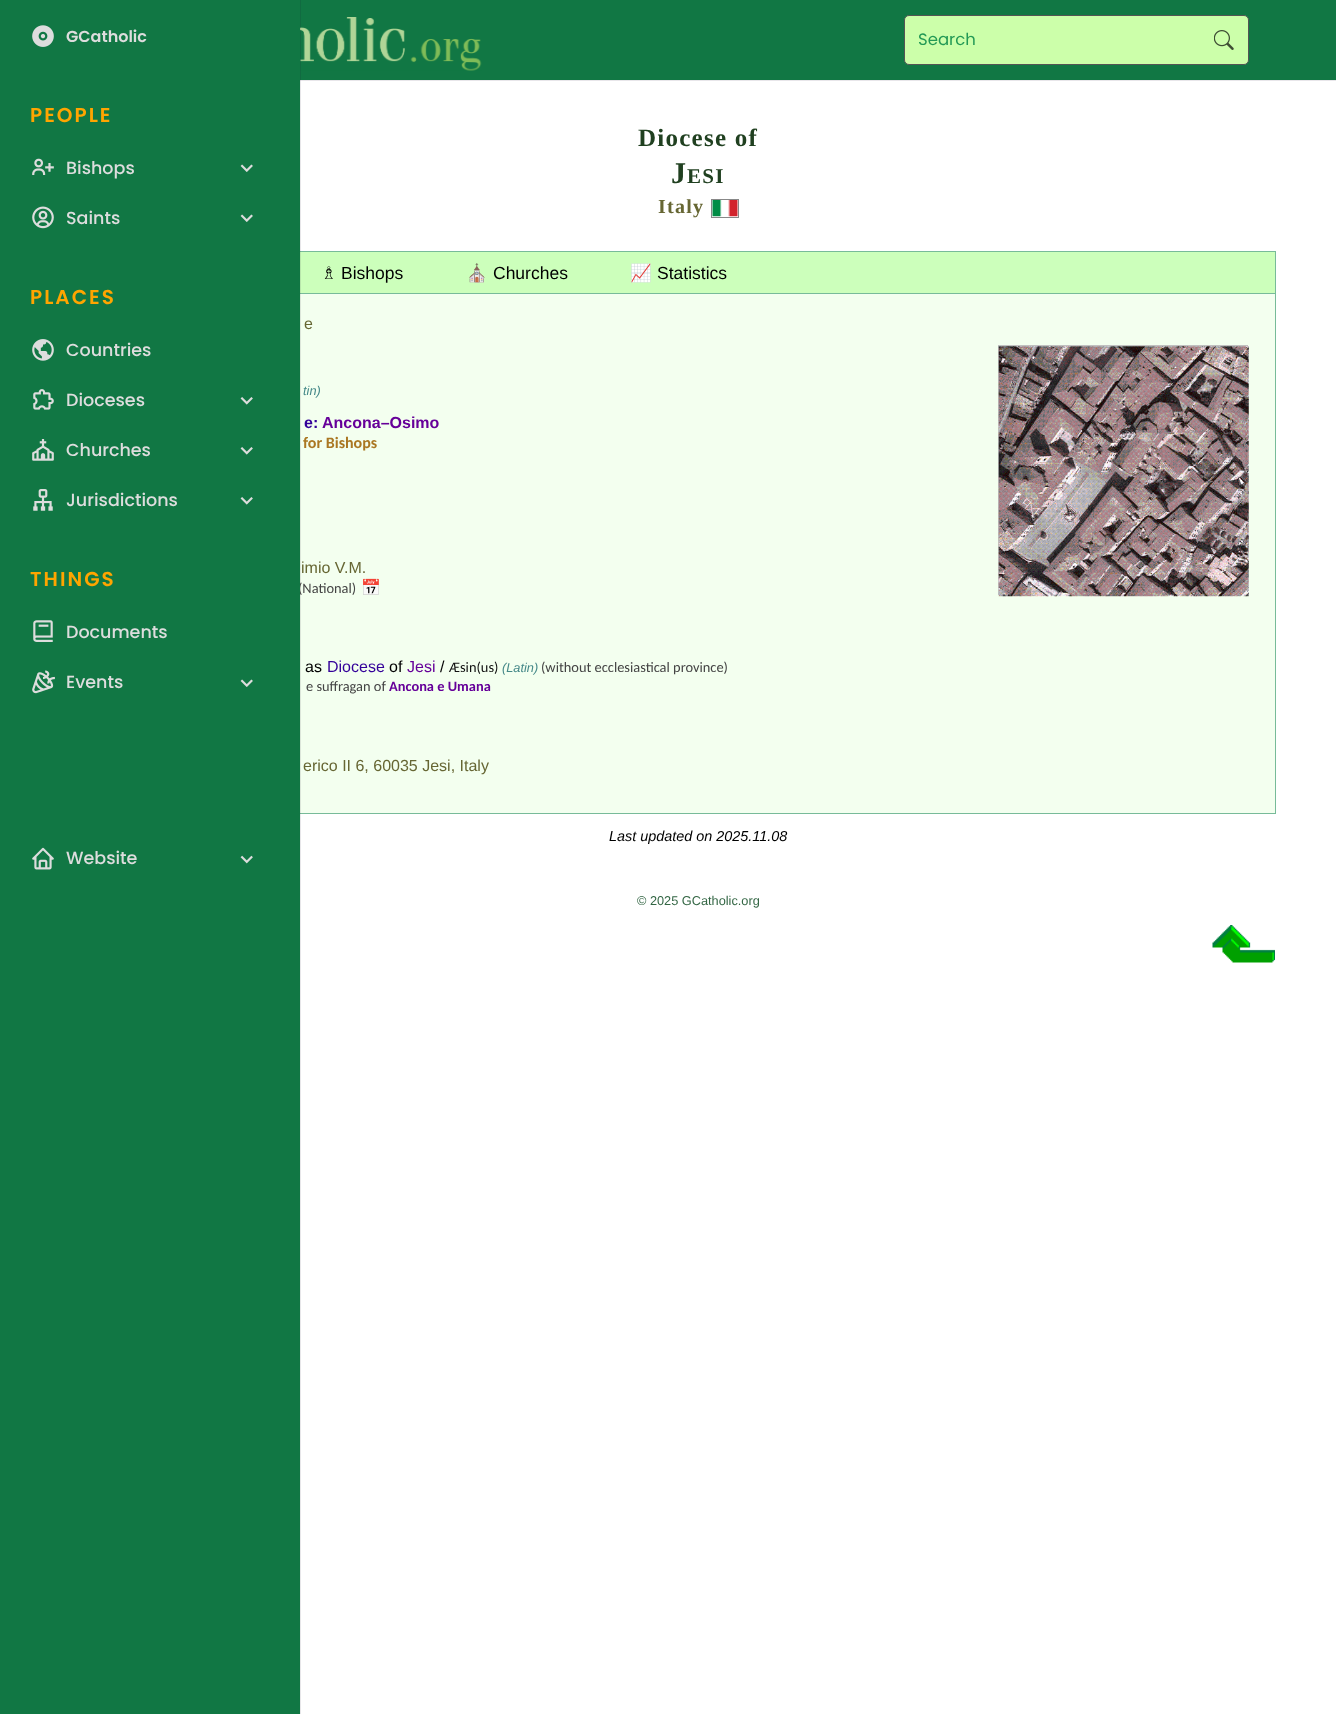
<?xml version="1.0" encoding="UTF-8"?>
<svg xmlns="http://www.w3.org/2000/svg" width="1336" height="1714">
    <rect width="100%" height="100%" fill="#FFFFFF"/>
    <rect x="300" y="80" width="1036" height="1" fill="#E8E6EA"/>
    <rect x="300" y="0" width="1036" height="80" fill="#117744"/>
    <image x="300" y="17" width="182" height="54" href="img_14.png"/>
    <rect x="300" y="252" width="975" height="41" fill="#CCFFBB"/>
    <rect x="120.5" y="251.5" width="1155" height="42" fill="none" stroke="#77BB99"/>
    <rect x="300" y="294" width="975" height="519" fill="#F3FFEF"/>
    <rect x="1275" y="294" width="1" height="520" fill="#77BB99"/>
    <rect x="300" y="813" width="976" height="1" fill="#77BB99"/>
    <rect x="300" y="0" width="1" height="1714" fill="#16082B" fill-opacity="0.1"/>
    <text x="298" y="593" font-family="Carlito" font-size="14.4" fill="#444444">(National)</text>
    <rect x="0" y="0" width="300" height="1714" fill="#117744"/>
    <image x="32" y="25" width="22" height="22" href="img_01.png"/>
    <text x="66" y="42" font-family="Poppins" font-size="16" font-weight="600" fill="#DDDDDD">GCatholic</text>
    <text x="30" y="122" font-family="Poppins" font-size="20" font-weight="600" letter-spacing="2" fill="#FFA500">PEOPLE</text>
    <image x="32" y="158" width="22" height="17" href="img_02.png"/>
    <text x="66" y="174" font-family="Poppins" font-size="17.5" font-weight="500" fill="#DDDDDD">Bishops</text>
    <image x="240" y="164" width="13" height="8" href="img_03.png"/>
    <image x="32" y="206" width="22" height="23" href="img_04.png"/>
    <text x="66" y="224" font-family="Poppins" font-size="17.5" font-weight="500" fill="#DDDDDD">Saints</text>
    <image x="240" y="214" width="13" height="8" href="img_03.png"/>
    <text x="30" y="304" font-family="Poppins" font-size="20" font-weight="600" letter-spacing="2" fill="#FFA500">PLACES</text>
    <image x="32" y="339" width="22" height="22" href="img_05.png"/>
    <text x="66" y="356" font-family="Poppins" font-size="17.5" font-weight="500" fill="#DDDDDD">Countries</text>
    <image x="33" y="389" width="21" height="21" href="img_06.png"/>
    <text x="66" y="406" font-family="Poppins" font-size="17.5" font-weight="500" fill="#DDDDDD">Dioceses</text>
    <image x="240" y="397" width="13" height="8" href="img_07.png"/>
    <image x="32" y="439" width="22" height="22" href="img_08.png"/>
    <text x="66" y="456" font-family="Poppins" font-size="17.5" font-weight="500" fill="#DDDDDD">Churches</text>
    <image x="240" y="447" width="13" height="8" href="img_07.png"/>
    <image x="33" y="489" width="20" height="22" href="img_09.png"/>
    <text x="66" y="506" font-family="Poppins" font-size="17.5" font-weight="500" fill="#DDDDDD">Jurisdictions</text>
    <image x="240" y="497" width="13" height="8" href="img_07.png"/>
    <text x="30" y="586" font-family="Poppins" font-size="20" font-weight="600" letter-spacing="2" fill="#FFA500">THINGS</text>
    <image x="33" y="620" width="20" height="22" href="img_10.png"/>
    <text x="66" y="638" font-family="Poppins" font-size="17.5" font-weight="500" fill="#DDDDDD">Documents</text>
    <image x="32" y="670" width="23" height="24" href="img_11.png"/>
    <text x="66" y="688" font-family="Poppins" font-size="17.5" font-weight="500" fill="#DDDDDD">Events</text>
    <image x="240" y="679" width="13" height="8" href="img_03.png"/>
    <image x="32" y="847" width="22" height="23" href="img_12.png"/>
    <text x="66" y="864" font-family="Poppins" font-size="17.5" font-weight="500" fill="#DDDDDD">Website</text>
    <image x="240" y="855" width="13" height="9" href="img_13.png"/>
    <rect x="904.5" y="15.5" width="344" height="49" rx="4.5" fill="#CCFFAA" stroke="#555555"/>
    <text x="918" y="45" font-family="Poppins" font-size="16.5" fill="#229955">Search</text>
    <image x="1214" y="30" width="20" height="20" href="img_15.png"/>
    <text x="638" y="146" font-family="Liberation Serif" font-size="25" font-weight="700" letter-spacing="1.25" fill="#204020">Diocese of</text>
    <text x="671" y="183" font-family="Liberation Serif" font-size="30" font-weight="700" letter-spacing="1.25" fill="#204020">J</text>
    <text x="687" y="183" font-family="Liberation Serif" font-size="21" font-weight="700" letter-spacing="1.25" fill="#204020">ESI</text>
    <text x="658" y="213" font-family="Liberation Serif" font-size="20" font-weight="700" letter-spacing="1.25" fill="#666633">Italy</text>
    <rect x="711.5" y="199.5" width="27" height="18" fill="none" stroke="#888888"/>
    <image x="712" y="200" width="26" height="17" href="img_16.png"/>
    <text x="321" y="279" font-family="DejaVu Sans" font-size="17.5" fill="#000000">♗</text>
    <text x="341" y="279" font-family="Liberation Sans" font-size="17.5" fill="#000000">Bishops</text>
    <text x="466" y="279" font-family="Noto Color Emoji" font-size="17.5" fill="#000000">⛪</text>
    <text x="493" y="279" font-family="Liberation Sans" font-size="17.5" fill="#000000">Churches</text>
    <text x="630" y="279" font-family="Noto Color Emoji" font-size="17.5" fill="#000000">📈</text>
    <text x="657" y="279" font-family="Liberation Sans" font-size="17.5" fill="#000000">Statistics</text>
    <text x="304" y="329" font-family="Liberation Sans" font-size="16" fill="#666633">e</text>
    <text x="303" y="395" font-family="Liberation Sans" font-size="12.75" font-style="italic" fill="#448888">tin)</text>
    <text x="304" y="428" font-family="Liberation Sans" font-size="16" font-weight="700" fill="#330099">e:</text>
    <text x="322" y="428" font-family="Liberation Sans" font-size="16" font-weight="700" fill="#660099">Ancona–Osimo</text>
    <text x="303" y="448" font-family="Carlito" font-size="16" font-weight="700" fill="#AA7722">for Bishops</text>
    <rect x="998.5" y="345.5" width="249" height="249" fill="none" stroke="#C0C0C0"/>
    <image x="998" y="346" width="251" height="251" href="img_17.png"/>
    <text x="301" y="573" font-family="Liberation Sans" font-size="16" fill="#666633">imio V.M.</text>
    <text x="361" y="593" font-family="Noto Color Emoji" font-size="16" fill="#666633">📅</text>
    <text x="305" y="672" font-family="Liberation Sans" font-size="16" fill="#000000">as</text>
    <text x="327" y="672" font-family="Liberation Sans" font-size="16" fill="#330099">Diocese</text>
    <text x="389" y="672" font-family="Liberation Sans" font-size="16" fill="#000000">of</text>
    <text x="407" y="672" font-family="Liberation Sans" font-size="16" fill="#660099">Jesi</text>
    <text x="440" y="672" font-family="Liberation Sans" font-size="16" fill="#000000">/</text>
    <text x="449" y="672" font-family="Carlito" font-size="14.4" fill="#111111">Æsin(us)</text>
    <text x="502" y="672" font-family="Liberation Sans" font-size="12.75" font-style="italic" fill="#448888">(Latin)</text>
    <text x="541" y="672" font-family="Carlito" font-size="14.4" fill="#444444">(without ecclesiastical province)</text>
    <text x="306" y="691" font-family="Carlito" font-size="14.4" fill="#444444">e suffragan of</text>
    <text x="389" y="691" font-family="Carlito" font-size="14.4" font-weight="700" fill="#660099">Ancona e Umana</text>
    <text x="303" y="771" font-family="Liberation Sans" font-size="16" fill="#666633">erico II 6, 60035 Jesi, Italy</text>
    <text x="609" y="841" font-family="Liberation Sans" font-size="14.4" font-style="italic" fill="#000000">Last updated on 2025.11.08</text>
    <text x="637" y="905" font-family="Liberation Sans" font-size="12.75" fill="#336644">© 2025 GCatholic.org</text>
    <image x="1212" y="925" width="63" height="38" href="img_18.png"/>
</svg>
